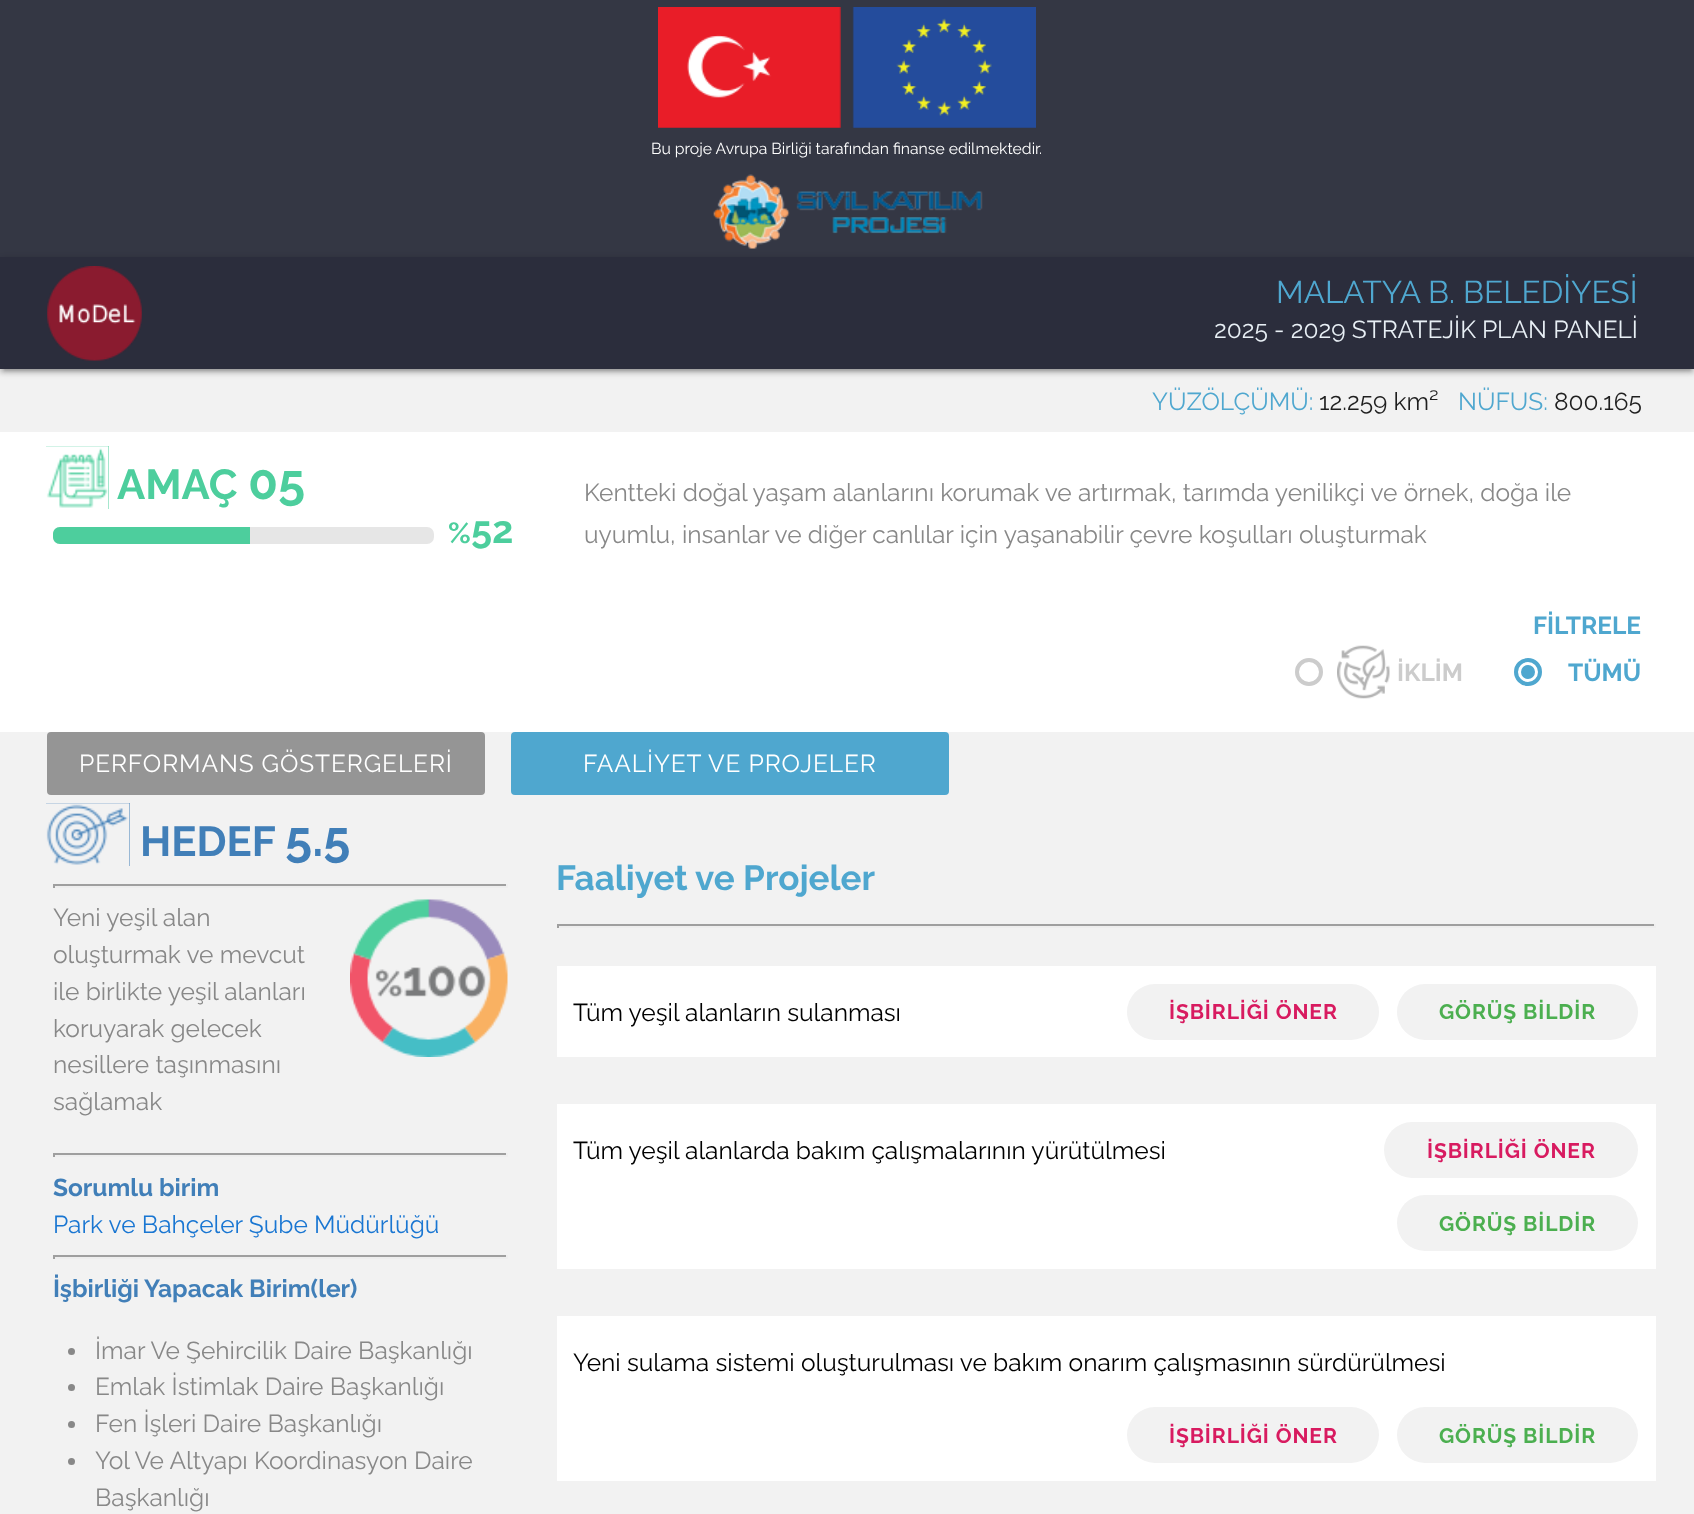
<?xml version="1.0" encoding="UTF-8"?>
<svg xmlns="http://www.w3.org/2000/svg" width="1694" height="1514">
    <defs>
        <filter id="blur1" x="-50%" y="-200%" width="200%" height="500%"><feGaussianBlur stdDeviation="4.5"/></filter>
        <filter id="blur2" x="-50%" y="-200%" width="200%" height="500%"><feGaussianBlur stdDeviation="1"/></filter>
        <filter id="blur3" x="-50%" y="-200%" width="200%" height="500%"><feGaussianBlur stdDeviation="2"/></filter>
    </defs>
    <rect width="100%" height="100%" fill="#F2F2F2"/>
    <rect x="0" y="0" width="1694" height="257" fill="#343744"/>
    <image x="658" y="7" width="378" height="121" href="img_01.png"/>
    <text x="651" y="154" font-family="Raleway" font-size="15.75" fill="#FFFFFF">Bu proje Avrupa Birliği tarafından finanse edilmektedir.</text>
    <image x="713" y="174" width="270" height="75" href="img_02.png"/>
    <rect x="0" y="259" width="1694" height="112" fill="#000000" fill-opacity="0.2" filter="url(#blur1)"/>
    <rect x="4" y="266" width="1687" height="105" fill="#000000" fill-opacity="0.12" filter="url(#blur2)"/>
    <rect x="0" y="261" width="1694" height="112" fill="#000000" fill-opacity="0.14" filter="url(#blur3)"/>
    <rect x="0" y="257" width="1694" height="112" fill="#2B2D3C"/>
    <image x="47" y="266" width="95" height="95" href="img_03.png"/>
    <text x="1276" y="303" font-family="Raleway" font-size="31.5" fill="#4FA7CF">MALATYA B. BELEDİYESİ</text>
    <text x="1214" y="338" font-family="Raleway" font-size="24.5" fill="#E8EFF5">2025 - 2029 STRATEJİK PLAN PANELİ</text>
    <text x="1152" y="410" font-family="Raleway" font-size="24.5" fill="#4FA7CF">YÜZÖLÇÜMÜ:</text>
    <text x="1319" y="410" font-family="Raleway" font-size="24.5" fill="#1F1F1F">12.259 km²</text>
    <text x="1458" y="410" font-family="Raleway" font-size="24.5" fill="#4FA7CF">NÜFUS:</text>
    <text x="1554" y="410" font-family="Raleway" font-size="24.5" fill="#1F1F1F">800.165</text>
    <rect x="0" y="432" width="1694" height="300" fill="#FFFFFF"/>
    <rect x="46" y="446" width="63" height="63" fill="#4DCE9D"/>
    <image x="46" y="446" width="63" height="63" href="img_04.png"/>
    <text x="117" y="499" font-family="Raleway" font-size="42" font-weight="700" fill="#4DCE9D">AMAÇ</text>
    <text x="248" y="499" font-family="Raleway" font-size="49" font-weight="700" fill="#4DCE9D">05</text>
    <rect x="53" y="527" width="381" height="17" rx="7" fill="#E6E6E6"/>
    <path d="M 60 527 H 250 V 544 H 60 C 56 544 53 541 53 537 V 534 C 53 530 56 527 60 527 Z" fill="#4DCE9D"/>
    <text x="448" y="543" font-family="Raleway" font-size="29" font-weight="700" fill="#4DCE9D">%</text>
    <text x="471" y="543" font-family="Raleway" font-size="38" font-weight="700" fill="#4DCE9D">52</text>
    <text font-family="Raleway" font-size="24.5" fill="#888888">
        <tspan x="584" y="501">Kentteki doğal yaşam alanlarını korumak ve artırmak, tarımda yenilikçi ve örnek, doğa ile</tspan>
        <tspan x="584" y="543">uyumlu, insanlar ve diğer canlılar için yaşanabilir çevre koşulları oluşturmak</tspan>
    </text>
    <text x="1533" y="634" font-family="Raleway" font-size="24.5" font-weight="700" fill="#4FA7CF">FİLTRELE</text>
    <image x="1337" y="645" width="53" height="54" href="img_05.png"/>
    <circle cx="1309" cy="672" r="12" fill="none" stroke="#CCCCCC" stroke-width="4"/>
    <text x="1397" y="681" font-family="Raleway" font-size="24.5" font-weight="700" fill="#CCCCCC">İKLİM</text>
    <circle cx="1528" cy="672" r="12" fill="none" stroke="#4FA7CF" stroke-width="4"/>
    <text x="1568" y="681" font-family="Raleway" font-size="24.5" font-weight="700" fill="#4FA7CF">TÜMÜ</text>
    <circle cx="1528" cy="672" r="6" fill="#4FA7CF" stroke="#4FA7CF" stroke-width="2"/>
    <rect x="47" y="732" width="438" height="63" rx="4" fill="#959595"/>
    <text x="79" y="772" font-family="Raleway" font-size="24.5" letter-spacing="0.9" fill="#FFFFFF">PERFORMANS GÖSTERGELERİ</text>
    <rect x="511" y="732" width="438" height="63" rx="4" fill="#4FA7CF"/>
    <text x="583" y="772" font-family="Raleway" font-size="24.5" letter-spacing="0.9" fill="#FFFFFF">FAALİYET VE PROJELER</text>
    <rect x="46" y="803" width="84" height="63" fill="#417FB8"/>
    <image x="46" y="803" width="84" height="63" href="img_06.png"/>
    <text x="140" y="856" font-family="Raleway" font-size="42" font-weight="700" fill="#417FB8">HEDEF</text>
    <text x="285" y="856" font-family="Raleway" font-size="49" font-weight="700" fill="#417FB8">5.5</text>
    <rect x="53" y="884" width="455" height="2" fill="#9F9F9F"/>
    <rect x="506" y="884" width="2" height="4" fill="#EEEEEE"/>
    <rect x="53" y="886" width="455" height="2" fill="#EEEEEE"/>
    <rect x="53" y="884" width="2" height="4" fill="#9F9F9F"/>
    <text font-family="Raleway" font-size="24.5" fill="#888888">
        <tspan x="53" y="926">Yeni yeşil alan</tspan>
        <tspan x="53" y="963">oluşturmak ve mevcut</tspan>
        <tspan x="53" y="1000">ile birlikte yeşil alanları</tspan>
        <tspan x="53" y="1037">koruyarak gelecek</tspan>
        <tspan x="53" y="1073">nesillere taşınmasını</tspan>
        <tspan x="53" y="1110">sağlamak</tspan>
    </text>
    <image x="350" y="899" width="158" height="158" href="img_07.png"/>
    <rect x="53" y="1153" width="455" height="2" fill="#9F9F9F"/>
    <rect x="506" y="1153" width="2" height="4" fill="#EEEEEE"/>
    <rect x="53" y="1155" width="455" height="2" fill="#EEEEEE"/>
    <rect x="53" y="1153" width="2" height="4" fill="#9F9F9F"/>
    <text x="53" y="1196" font-family="Raleway" font-size="24.5" font-weight="700" fill="#417FB8">Sorumlu birim</text>
    <text x="53" y="1233" font-family="Raleway" font-size="24.5" fill="#1976D2">Park ve Bahçeler Şube Müdürlüğü</text>
    <rect x="53" y="1255" width="455" height="2" fill="#9F9F9F"/>
    <rect x="506" y="1255" width="2" height="4" fill="#EEEEEE"/>
    <rect x="53" y="1257" width="455" height="2" fill="#EEEEEE"/>
    <rect x="53" y="1255" width="2" height="4" fill="#9F9F9F"/>
    <text x="53" y="1297" font-family="Raleway" font-size="24.5" font-weight="700" fill="#417FB8">İşbirliği Yapacak Birim(ler)</text>
    <circle cx="71.5" cy="1351.5" r="3.5" fill="#888888"/>
    <text x="95" y="1359" font-family="Raleway" font-size="24.5" fill="#888888">İmar Ve Şehircilik Daire Başkanlığı</text>
    <circle cx="71.5" cy="1387.5" r="3.5" fill="#888888"/>
    <text x="95" y="1395" font-family="Raleway" font-size="24.5" fill="#888888">Emlak İstimlak Daire Başkanlığı</text>
    <circle cx="71.5" cy="1424.5" r="3.5" fill="#888888"/>
    <text x="95" y="1432" font-family="Raleway" font-size="24.5" fill="#888888">Fen İşleri Daire Başkanlığı</text>
    <circle cx="71.5" cy="1461.5" r="3.5" fill="#888888"/>
    <text font-family="Raleway" font-size="24.5" fill="#888888">
        <tspan x="95" y="1469">Yol Ve Altyapı Koordinasyon Daire</tspan>
        <tspan x="95" y="1506">Başkanlığı</tspan>
    </text>
    <text x="556" y="890" font-family="Raleway" font-size="35" font-weight="700" fill="#4FA7CF">Faaliyet ve Projeler</text>
    <rect x="557" y="924" width="1099" height="2" fill="#9F9F9F"/>
    <rect x="1654" y="924" width="2" height="4" fill="#EEEEEE"/>
    <rect x="557" y="926" width="1099" height="2" fill="#EEEEEE"/>
    <rect x="557" y="924" width="2" height="4" fill="#9F9F9F"/>
    <rect x="557" y="966" width="1099" height="91" fill="#FFFFFF"/>
    <text x="573" y="1021" font-family="Raleway" font-size="24.5" fill="#000000">Tüm yeşil alanların sulanması</text>
    <rect x="1127" y="984" width="252" height="56" rx="28" fill="#F2F2F2"/>
    <text x="1169" y="1019" font-family="Raleway" font-size="21" font-weight="700" letter-spacing="0.9" fill="#D81B60">İŞBİRLİĞİ ÖNER</text>
    <rect x="1397" y="984" width="241" height="56" rx="28" fill="#F2F2F2"/>
    <text x="1439" y="1019" font-family="Raleway" font-size="21" font-weight="700" letter-spacing="0.9" fill="#4CAF50">GÖRÜŞ BİLDİR</text>
    <rect x="557" y="1104" width="1099" height="165" fill="#FFFFFF"/>
    <text x="573" y="1159" font-family="Raleway" font-size="24.5" fill="#000000">Tüm yeşil alanlarda bakım çalışmalarının yürütülmesi</text>
    <rect x="1384" y="1122" width="254" height="56" rx="28" fill="#F2F2F2"/>
    <text x="1427" y="1158" font-family="Raleway" font-size="21" font-weight="700" letter-spacing="0.9" fill="#D81B60">İŞBİRLİĞİ ÖNER</text>
    <rect x="1397" y="1195" width="241" height="56" rx="28" fill="#F2F2F2"/>
    <text x="1439" y="1231" font-family="Raleway" font-size="21" font-weight="700" letter-spacing="0.9" fill="#4CAF50">GÖRÜŞ BİLDİR</text>
    <rect x="557" y="1316" width="1099" height="165" fill="#FFFFFF"/>
    <text x="573" y="1371" font-family="Raleway" font-size="24.5" fill="#000000">Yeni sulama sistemi oluşturulması ve bakım onarım çalışmasının sürdürülmesi</text>
    <rect x="1127" y="1407" width="252" height="56" rx="28" fill="#F2F2F2"/>
    <text x="1169" y="1443" font-family="Raleway" font-size="21" font-weight="700" letter-spacing="0.9" fill="#D81B60">İŞBİRLİĞİ ÖNER</text>
    <rect x="1397" y="1407" width="241" height="56" rx="28" fill="#F2F2F2"/>
    <text x="1439" y="1443" font-family="Raleway" font-size="21" font-weight="700" letter-spacing="0.9" fill="#4CAF50">GÖRÜŞ BİLDİR</text>
</svg>
